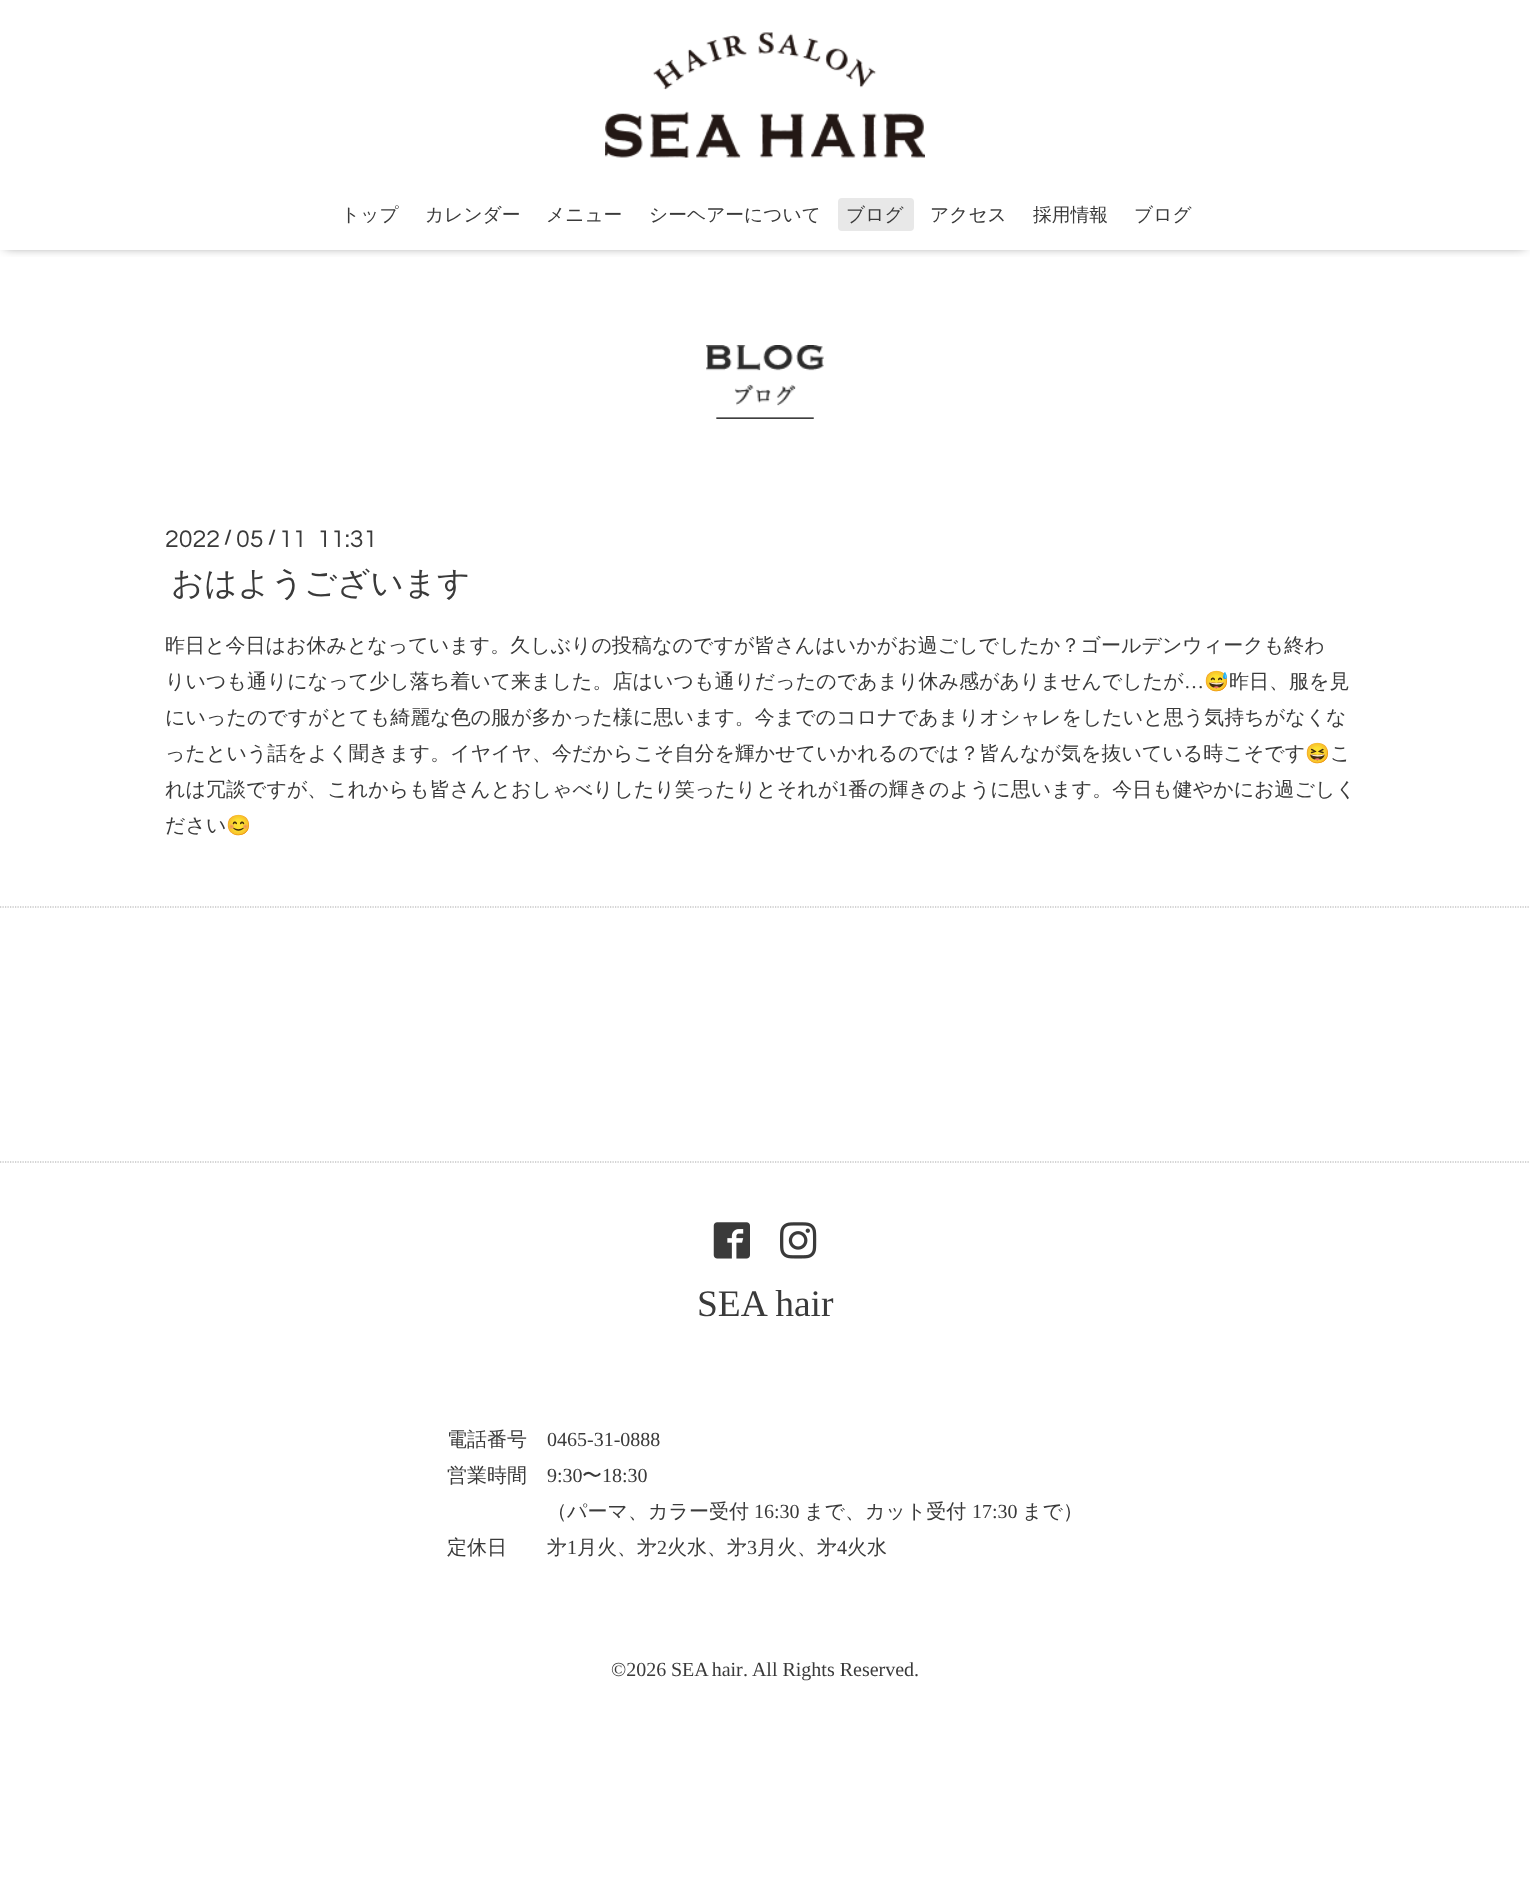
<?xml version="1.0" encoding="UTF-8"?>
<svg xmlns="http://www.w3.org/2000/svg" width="1530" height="1896">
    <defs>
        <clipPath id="clip1"><rect x="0" y="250" width="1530" height="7"/></clipPath>
        <filter id="blur1" x="-50%" y="-200%" width="200%" height="500%"><feGaussianBlur stdDeviation="6"/></filter>
    </defs>
    <rect width="100%" height="100%" fill="#FFFFFF"/>
    <g clip-path="url(#clip1)">
        <rect x="5" y="6" width="1520" height="240" fill="#000000" fill-opacity="0.6" filter="url(#blur1)"/>
    </g>
    <image x="605" y="32" width="320" height="126" href="img_01.png"/>
    <text x="341" y="221" font-family="WenQuanYi Zen Hei" font-size="18.75" font-weight="500" fill="#3A3A3A">トップ</text>
    <text x="425" y="221" font-family="WenQuanYi Zen Hei" font-size="18.75" font-weight="500" fill="#3A3A3A">カレンダー</text>
    <text x="546" y="221" font-family="WenQuanYi Zen Hei" font-size="18.75" font-weight="500" fill="#3A3A3A">メニュー</text>
    <text x="649" y="221" font-family="WenQuanYi Zen Hei" font-size="18.75" font-weight="500" fill="#3A3A3A">シーヘアーについて</text>
    <rect x="838" y="198" width="76" height="33" rx="4" fill="#E8E8E8"/>
    <text x="846" y="221" font-family="WenQuanYi Zen Hei" font-size="18.75" font-weight="500" fill="#3A3A3A">ブログ</text>
    <text x="930" y="221" font-family="WenQuanYi Zen Hei" font-size="18.75" font-weight="500" fill="#3A3A3A">アクセス</text>
    <text x="1033" y="221" font-family="WenQuanYi Zen Hei" font-size="18.75" font-weight="500" fill="#3A3A3A">採用情報</text>
    <text x="1134" y="221" font-family="WenQuanYi Zen Hei" font-size="18.75" font-weight="500" fill="#3A3A3A">ブログ</text>
    <image x="706" y="345" width="118" height="74" href="img_02.png"/>
    <text x="165" y="547" font-family="Questrial" font-size="25" fill="#3A3A3A">2022</text>
    <text x="224" y="544" font-family="Questrial" font-size="20" font-weight="700" fill="#3A3A3A">/</text>
    <text x="236" y="547" font-family="Questrial" font-size="25" fill="#3A3A3A">05</text>
    <text x="268" y="544" font-family="Questrial" font-size="20" font-weight="700" fill="#3A3A3A">/</text>
    <text x="279" y="547" font-family="Questrial" font-size="25" fill="#3A3A3A" xml:space="preserve">11  11:31</text>
    <text x="171" y="594" font-family="WenQuanYi Zen Hei" font-size="32.5" font-weight="500" fill="#3A3A3A">おはようございます</text>
    <text font-family="WenQuanYi Zen Hei" font-size="20" font-weight="500" fill="#3A3A3A">
        <tspan x="165" y="652">昨日と今日はお休みとなっています。久しぶりの投稿なのですが皆さんはいかがお過ごしでしたか？ゴールデンウィークも終わ</tspan>
        <tspan x="165" y="688">りいつも通りになって少し落ち着いて来ました。店はいつも通りだったのであまり休み感がありませんでしたが</tspan>
    </text>
    <text x="1184" y="688" font-family="Liberation Serif" font-size="20" fill="#3A3A3A">…</text>
    <text x="1204" y="688" font-family="Noto Color Emoji" font-size="20" fill="#3A3A3A">😅</text>
    <text x="1229" y="688" font-family="WenQuanYi Zen Hei" font-size="20" font-weight="500" fill="#3A3A3A">昨日、服を見</text>
    <text font-family="WenQuanYi Zen Hei" font-size="20" font-weight="500" fill="#3A3A3A">
        <tspan x="165" y="724">にいったのですがとても綺麗な色の服が多かった様に思います。今までのコロナであまりオシャレをしたいと思う気持ちがなくな</tspan>
        <tspan x="165" y="760">ったという話をよく聞きます。イヤイヤ、今だからこそ自分を輝かせていかれるのでは？皆んなが気を抜いている時こそです</tspan>
    </text>
    <text x="1305" y="760" font-family="Noto Color Emoji" font-size="20" fill="#3A3A3A">😆</text>
    <text x="1330" y="760" font-family="WenQuanYi Zen Hei" font-size="20" font-weight="500" fill="#3A3A3A">こ</text>
    <text x="165" y="796" font-family="WenQuanYi Zen Hei" font-size="20" font-weight="500" fill="#3A3A3A">れは冗談ですが、これからも皆さんとおしゃべりしたり笑ったりとそれが</text>
    <text x="838" y="796" font-family="Liberation Serif" font-size="20" fill="#3A3A3A">1</text>
    <text x="848" y="796" font-family="WenQuanYi Zen Hei" font-size="20" font-weight="500" fill="#3A3A3A">番の輝きのように思います。今日も健やかにお過ごしく</text>
    <text x="165" y="832" font-family="WenQuanYi Zen Hei" font-size="20" font-weight="500" fill="#3A3A3A">ださい</text>
    <text x="226" y="832" font-family="Noto Color Emoji" font-size="20" fill="#3A3A3A">😊</text>
    <path d="M 0 907 H 1530" fill="none" stroke="#A9A9A9" stroke-width="1.2" stroke-dasharray="1.25 1.25"/>
    <path d="M 0 1162 H 1530" fill="none" stroke="#A9A9A9" stroke-width="1.2" stroke-dasharray="1.25 1.25"/>
    <image x="713" y="1222" width="37" height="37" href="img_03.png"/>
    <image x="780" y="1222" width="37" height="37" href="img_04.png"/>
    <text x="697" y="1316" font-family="Liberation Serif" font-size="37.5" fill="#3A3A3A">SEA hair</text>
    <text x="447" y="1446" font-family="WenQuanYi Zen Hei" font-size="20" font-weight="500" fill="#3A3A3A">電話番号</text>
    <text x="547" y="1446" font-family="Liberation Serif" font-size="20" fill="#3A3A3A">0465-31-0888</text>
    <text x="447" y="1482" font-family="WenQuanYi Zen Hei" font-size="20" font-weight="500" fill="#3A3A3A">営業時間</text>
    <text x="547" y="1482" font-family="Liberation Serif" font-size="20" fill="#3A3A3A">9:30</text>
    <text x="582" y="1482" font-family="WenQuanYi Zen Hei" font-size="20" font-weight="500" fill="#3A3A3A">〜</text>
    <text x="602" y="1482" font-family="Liberation Serif" font-size="20" fill="#3A3A3A">18:30</text>
    <text x="547" y="1518" font-family="WenQuanYi Zen Hei" font-size="20" font-weight="500" fill="#3A3A3A">（パーマ、カラー受付</text>
    <text x="754" y="1518" font-family="Liberation Serif" font-size="20" fill="#3A3A3A">16:30</text>
    <text x="804" y="1518" font-family="WenQuanYi Zen Hei" font-size="20" font-weight="500" fill="#3A3A3A">まで、カット受付</text>
    <text x="972" y="1518" font-family="Liberation Serif" font-size="20" fill="#3A3A3A">17:30</text>
    <text x="1022" y="1518" font-family="WenQuanYi Zen Hei" font-size="20" font-weight="500" fill="#3A3A3A">まで）</text>
    <text x="447" y="1554" font-family="WenQuanYi Zen Hei" font-size="20" font-weight="500" fill="#3A3A3A">定休日</text>
    <text x="547" y="1554" font-family="WenQuanYi Zen Hei" font-size="20" font-weight="500" fill="#3A3A3A">㐧</text>
    <text x="567" y="1554" font-family="Liberation Serif" font-size="20" fill="#3A3A3A">1</text>
    <text x="577" y="1554" font-family="WenQuanYi Zen Hei" font-size="20" font-weight="500" fill="#3A3A3A">月火、㐧</text>
    <text x="657" y="1554" font-family="Liberation Serif" font-size="20" fill="#3A3A3A">2</text>
    <text x="667" y="1554" font-family="WenQuanYi Zen Hei" font-size="20" font-weight="500" fill="#3A3A3A">火水、㐧</text>
    <text x="747" y="1554" font-family="Liberation Serif" font-size="20" fill="#3A3A3A">3</text>
    <text x="757" y="1554" font-family="WenQuanYi Zen Hei" font-size="20" font-weight="500" fill="#3A3A3A">月火、㐧</text>
    <text x="837" y="1554" font-family="Liberation Serif" font-size="20" fill="#3A3A3A">4</text>
    <text x="847" y="1554" font-family="WenQuanYi Zen Hei" font-size="20" font-weight="500" fill="#3A3A3A">火水</text>
    <text x="611" y="1676" font-family="Liberation Serif" font-size="20" fill="#3A3A3A">©2026</text>
    <text x="671" y="1676" word-spacing="-1" font-family="Liberation Serif" font-size="20" fill="#3A3A3A">SEA hair</text>
    <text x="743" y="1676" font-family="Liberation Serif" font-size="20" fill="#3A3A3A">. All Rights Reserved.</text>
</svg>
